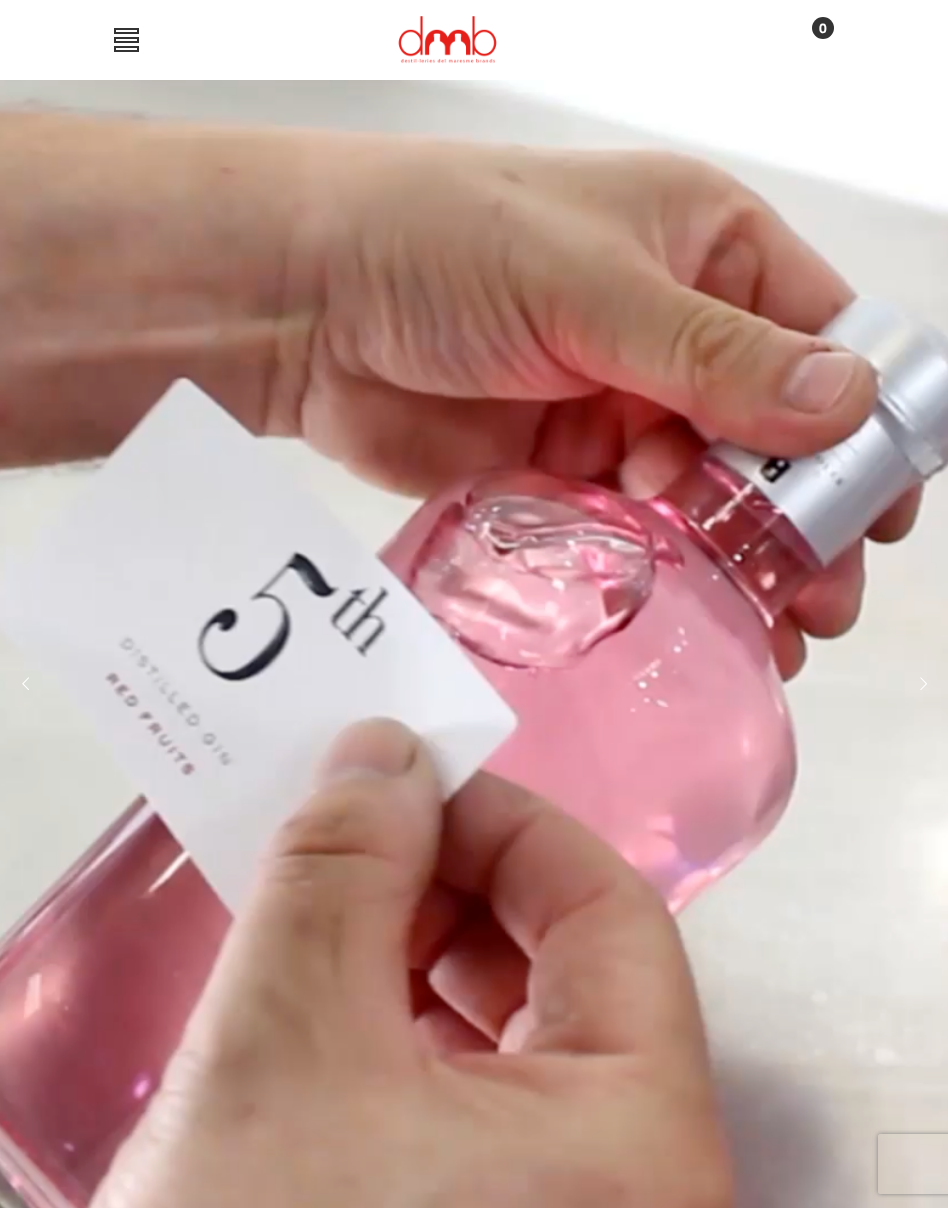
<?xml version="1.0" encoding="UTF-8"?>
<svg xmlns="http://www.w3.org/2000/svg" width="948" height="1208">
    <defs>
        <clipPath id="clip1"><path d="M 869 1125 H 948 V 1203 H 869 Z M 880 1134 H 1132 C 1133 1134 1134 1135 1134 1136 V 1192 C 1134 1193 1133 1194 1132 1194 H 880 C 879 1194 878 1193 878 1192 V 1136 C 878 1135 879 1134 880 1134 Z" clip-rule="evenodd"/></clipPath>
        <filter id="blur1" x="-50%" y="-200%" width="200%" height="500%"><feGaussianBlur stdDeviation="2.5"/></filter>
    </defs>
    <rect width="100%" height="100%" fill="#FFFFFF"/>
    <rect x="115" y="38" width="23" height="4" fill="none" stroke="#333333" stroke-width="2"/>
    <rect x="115" y="29" width="23" height="4" fill="none" stroke="#333333" stroke-width="2"/>
    <rect x="115" y="47" width="23" height="4" fill="none" stroke="#333333" stroke-width="2"/>
    <image x="398" y="16" width="99" height="48" href="img_01.png"/>
    <circle cx="823" cy="28" r="11" fill="#333333"/>
    <text x="819" y="33" font-family="Cairo" font-size="14" font-weight="700" fill="#FFFFFF">0</text>
    <image x="0" y="80" width="948" height="1128" href="img_02.png"/>
    <image x="22" y="677" width="7" height="13" href="img_03.png"/>
    <image x="920" y="677" width="7" height="13" href="img_04.png"/>
    <g clip-path="url(#clip1)">
        <rect x="878" y="1134" width="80" height="60" rx="2" fill="#808080" filter="url(#blur1)"/>
    </g>
</svg>
